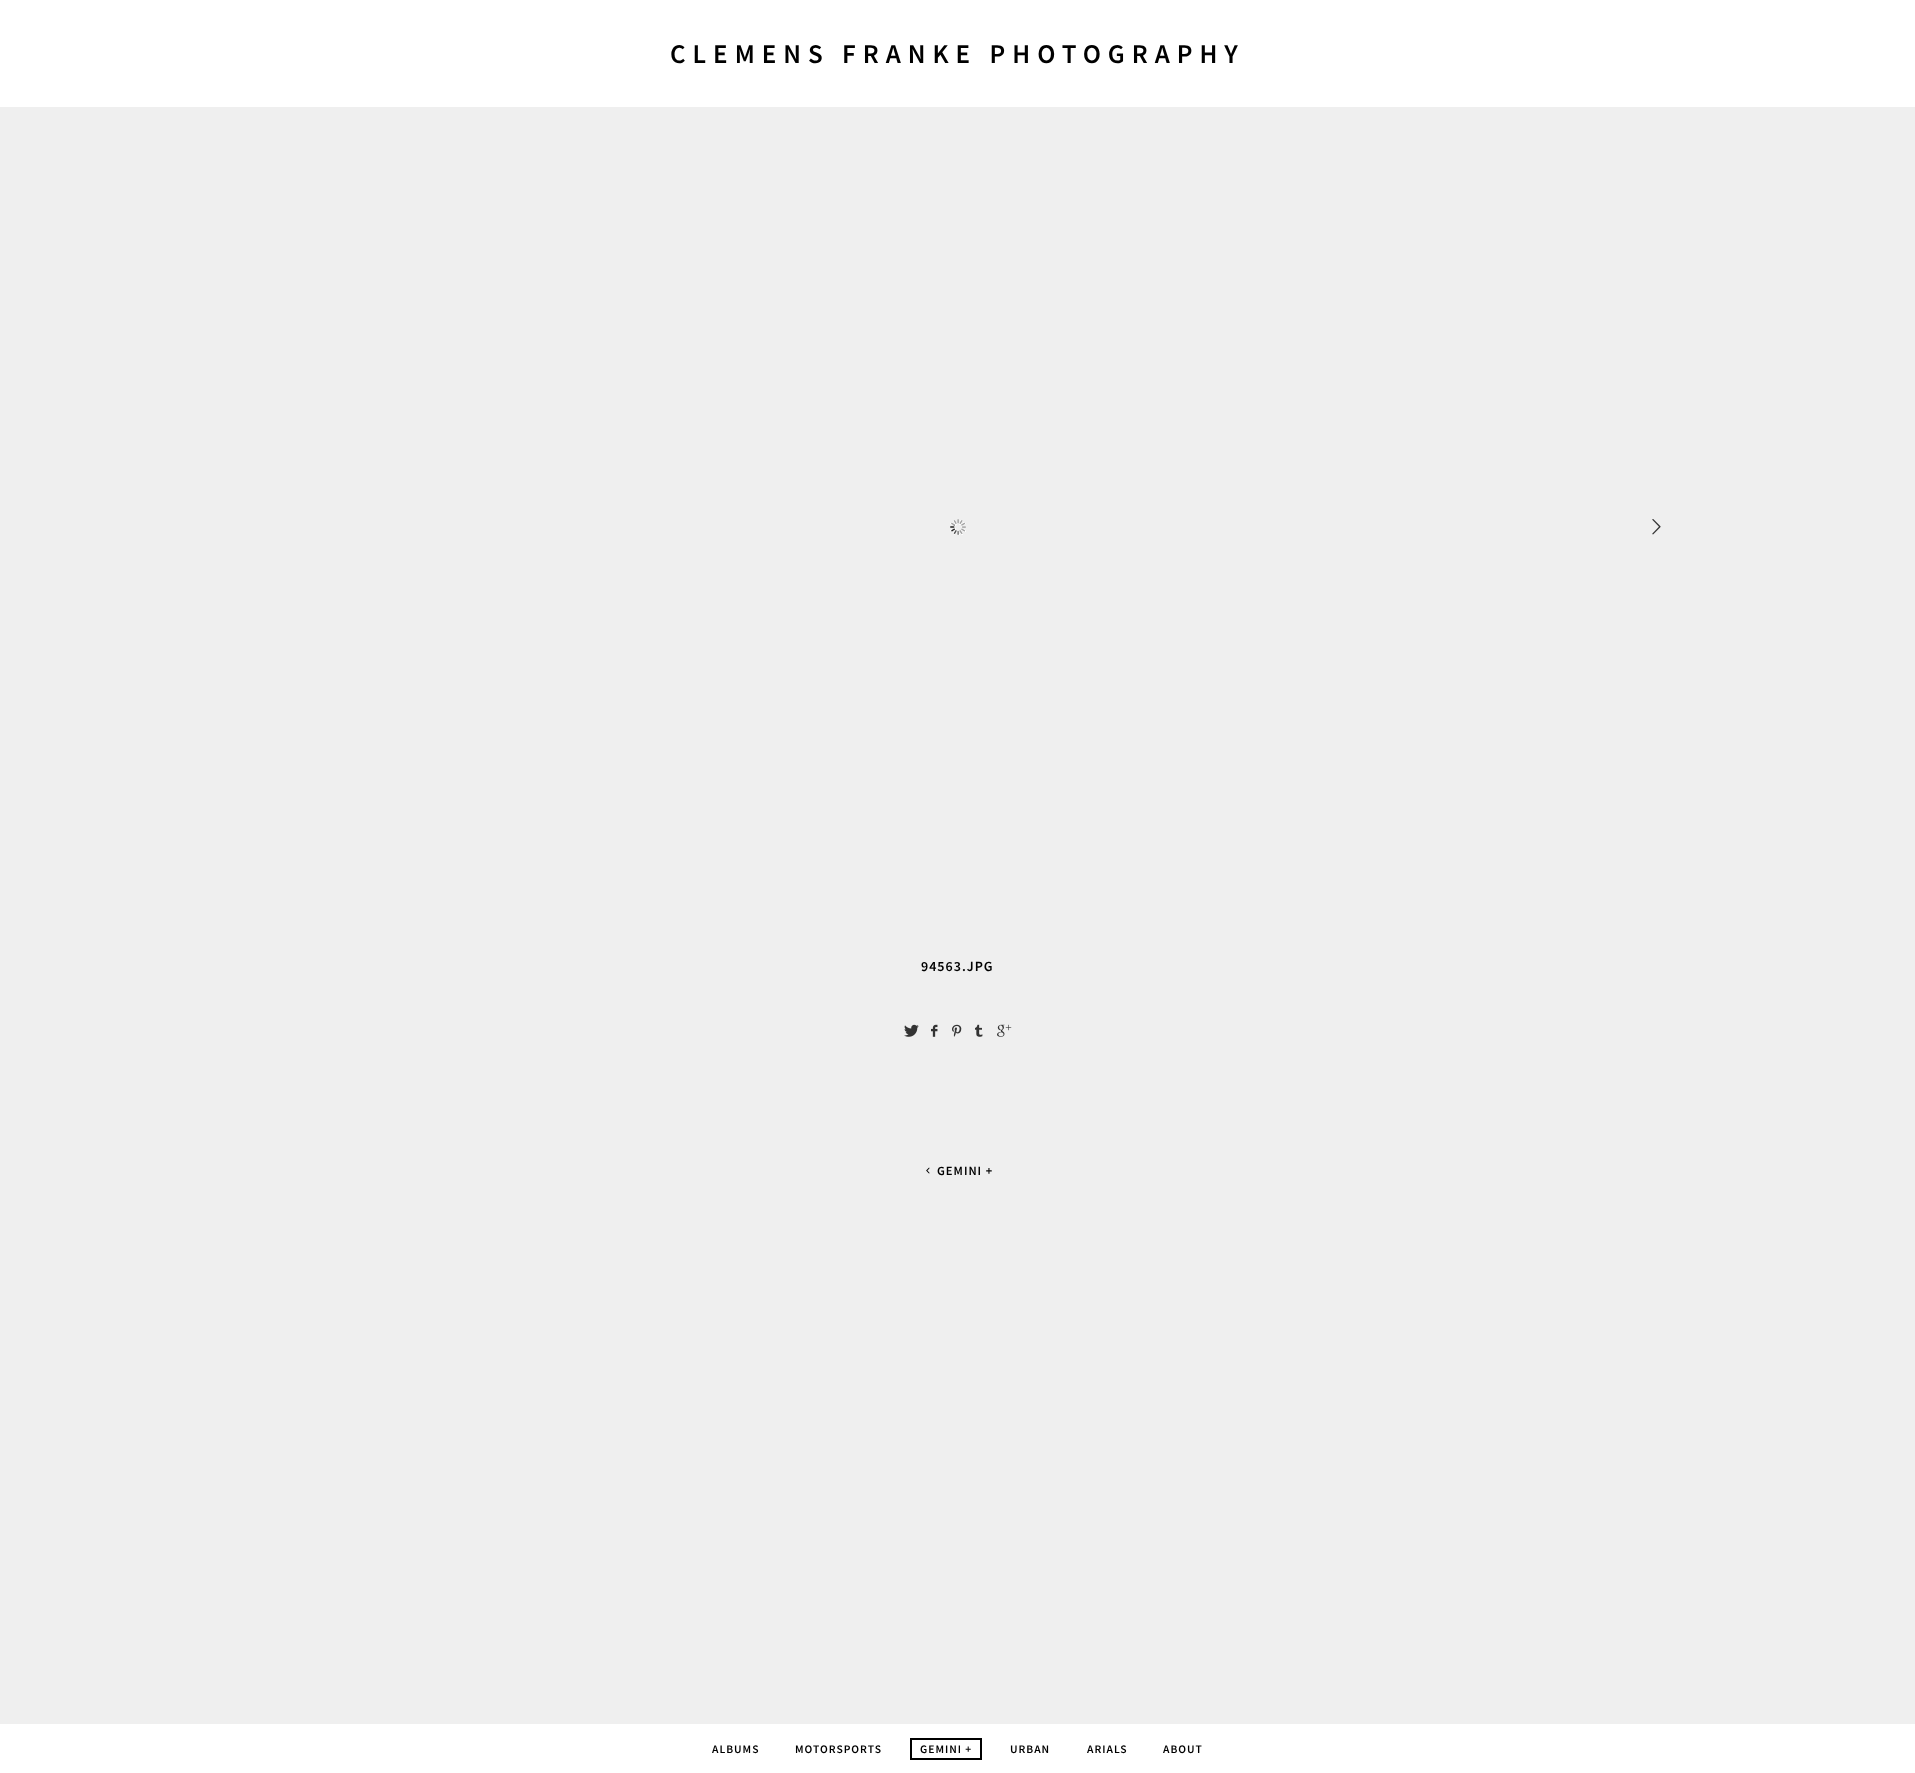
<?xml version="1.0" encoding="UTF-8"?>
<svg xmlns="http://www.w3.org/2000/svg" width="1915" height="1773">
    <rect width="100%" height="100%" fill="#EFEFEF"/>
    <rect x="0" y="0" width="1915" height="107" fill="#FFFFFF"/>
    <text x="670" y="63" font-family="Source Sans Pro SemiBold" font-size="27" font-weight="600" letter-spacing="7" fill="#000000">CLEMENS FRANKE PHOTOGRAPHY</text>
    <image x="950" y="519" width="16" height="16" href="img_01.png"/>
    <image x="1652" y="519" width="9" height="16" href="img_02.png"/>
    <text x="921" y="971" font-family="Source Sans Pro SemiBold" font-size="14" font-weight="600" letter-spacing="1" fill="#000000">94563.JPG</text>
    <image x="904" y="1024" width="15" height="13" href="img_03.png"/>
    <image x="931" y="1024" width="7" height="13" href="img_04.png"/>
    <image x="952" y="1024" width="10" height="13" href="img_05.png"/>
    <image x="975" y="1024" width="8" height="13" href="img_06.png"/>
    <image x="997" y="1024" width="15" height="13" href="img_07.png"/>
    <image x="926" y="1167" width="4" height="7" href="img_08.png"/>
    <text x="937" y="1175" font-family="Source Sans Pro SemiBold" font-size="12.5" font-weight="600" letter-spacing="1" fill="#000000">GEMINI +</text>
    <rect x="0" y="1724" width="1915" height="49" fill="#FFFFFF"/>
    <text x="712" y="1753" font-family="Source Sans Pro SemiBold" font-size="11.5" font-weight="600" letter-spacing="1" fill="#000000">ALBUMS</text>
    <text x="795" y="1753" font-family="Source Sans Pro SemiBold" font-size="11.5" font-weight="600" letter-spacing="1" fill="#000000">MOTORSPORTS</text>
    <rect x="911" y="1739" width="70" height="20" fill="none" stroke="#000000" stroke-width="2"/>
    <text x="920" y="1753" font-family="Source Sans Pro SemiBold" font-size="11.5" font-weight="600" letter-spacing="1" fill="#000000">GEMINI +</text>
    <text x="1010" y="1753" font-family="Source Sans Pro SemiBold" font-size="11.5" font-weight="600" letter-spacing="1" fill="#000000">URBAN</text>
    <text x="1087" y="1753" font-family="Source Sans Pro SemiBold" font-size="11.5" font-weight="600" letter-spacing="1" fill="#000000">ARIALS</text>
    <text x="1163" y="1753" font-family="Source Sans Pro SemiBold" font-size="11.5" font-weight="600" letter-spacing="1" fill="#000000">ABOUT</text>
</svg>
